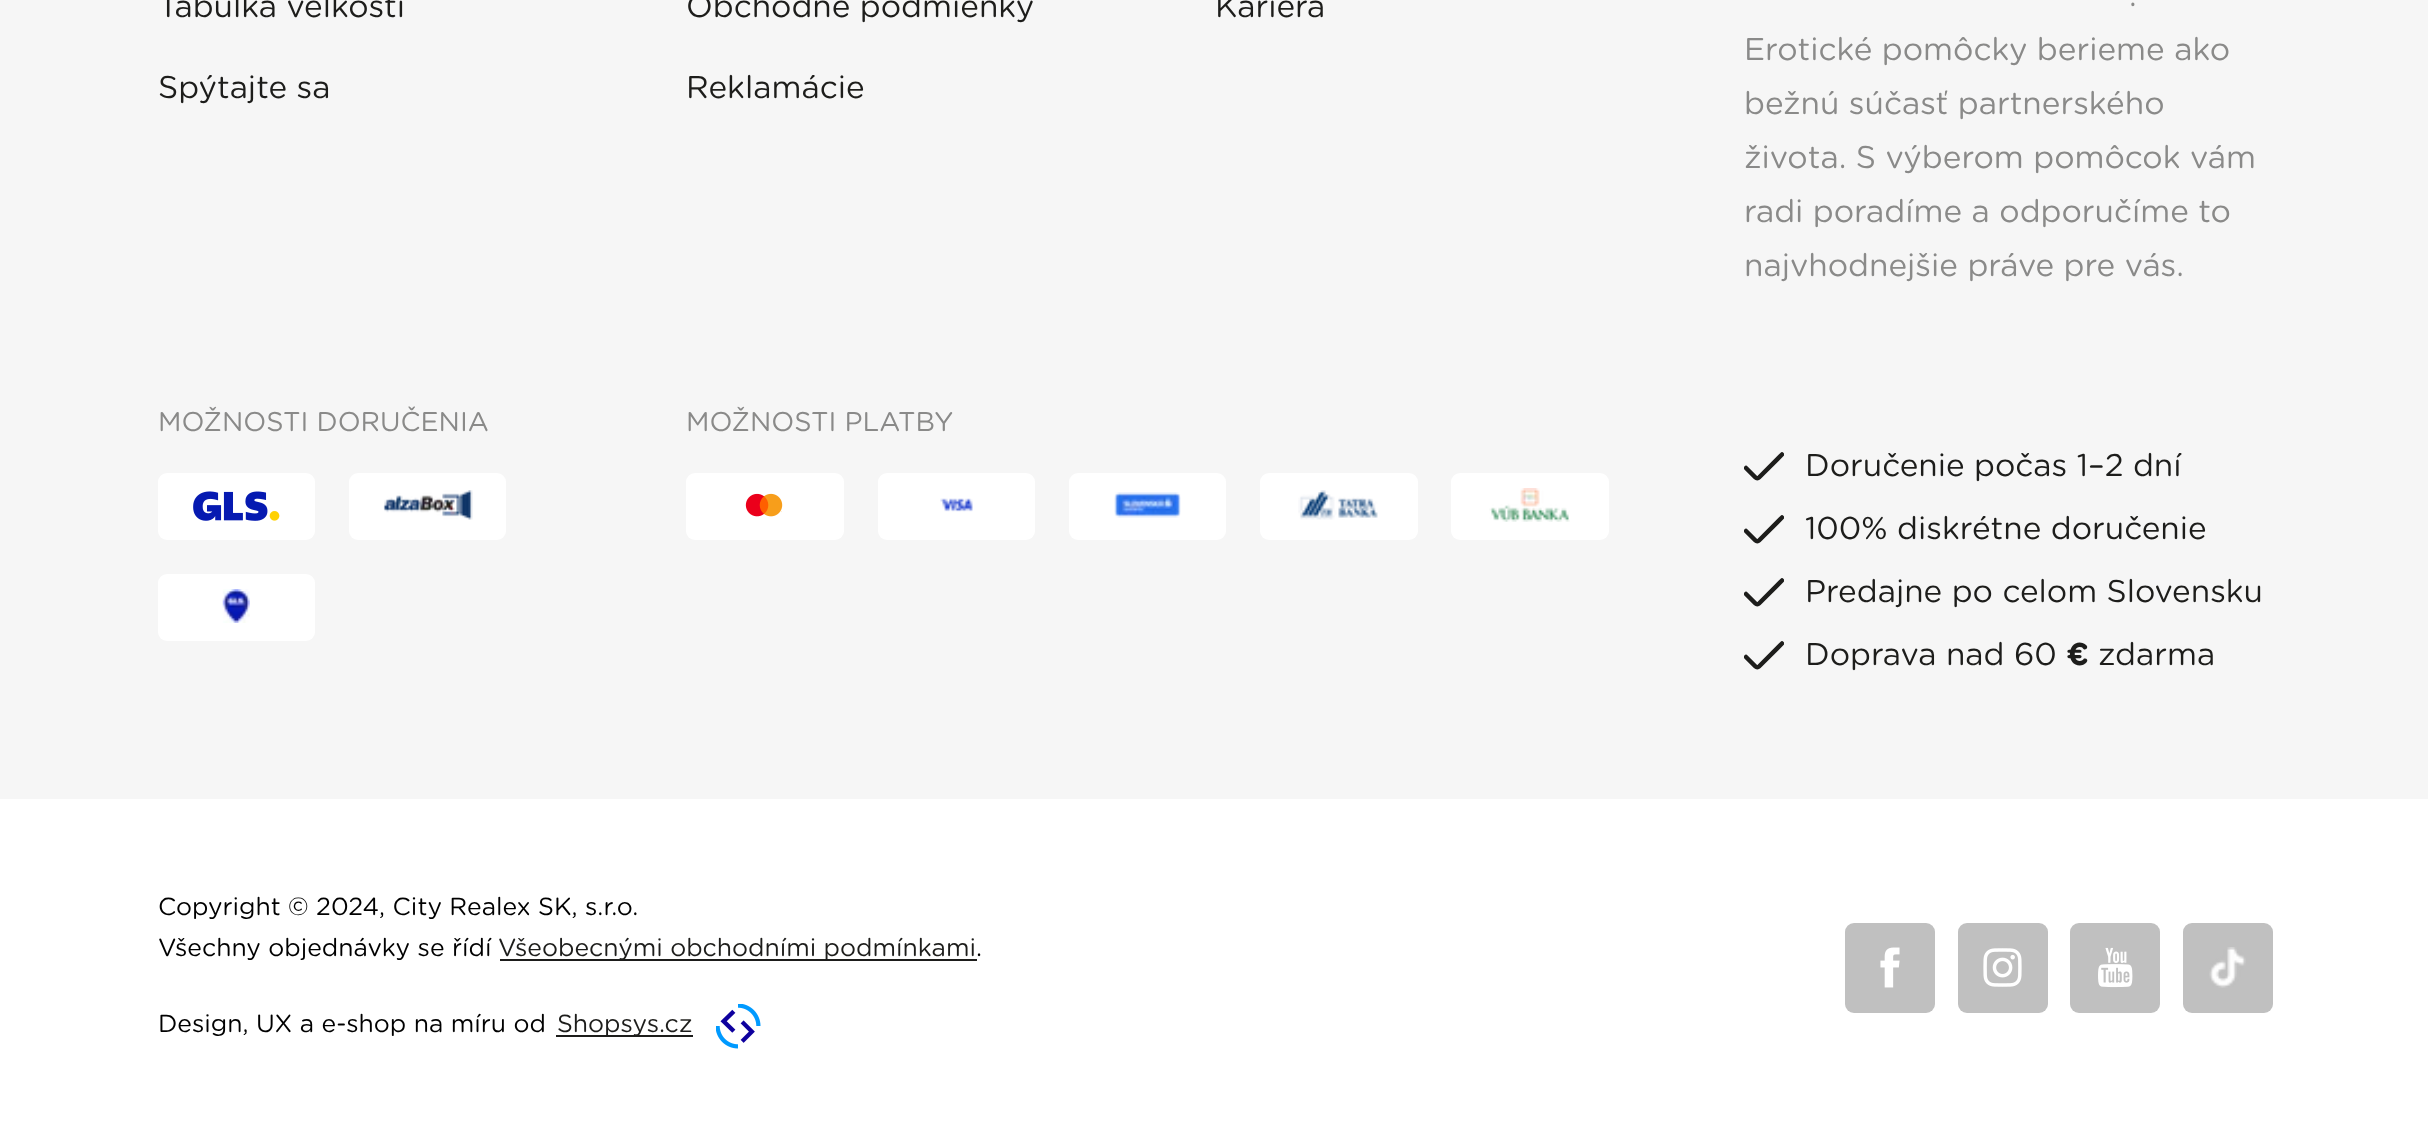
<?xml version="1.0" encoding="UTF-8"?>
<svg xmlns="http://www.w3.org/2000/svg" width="2428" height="1138">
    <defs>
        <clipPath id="clip1"><rect x="1744" y="452" width="40" height="30"/></clipPath>
        <clipPath id="clip2"><rect x="1744" y="515" width="40" height="30"/></clipPath>
        <clipPath id="clip3"><rect x="1744" y="578" width="40" height="30"/></clipPath>
        <clipPath id="clip4"><rect x="1744" y="641" width="40" height="30"/></clipPath>
    </defs>
    <rect width="100%" height="100%" fill="#FFFFFF"/>
    <rect x="0" y="0" width="2428" height="799" fill="#F6F6F6"/>
    <text x="158" y="17" font-family="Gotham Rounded" font-size="31.5" fill="#1D1D1B">Tabuľka veľkostí</text>
    <text x="158" y="98" font-family="Gotham Rounded" font-size="31.5" fill="#1D1D1B">Spýtajte sa</text>
    <text x="686" y="17" font-family="Gotham Rounded" font-size="31.5" fill="#1D1D1B">Obchodné podmienky</text>
    <text x="686" y="98" font-family="Gotham Rounded" font-size="31.5" fill="#1D1D1B">Reklamácie</text>
    <text x="1215" y="17" font-family="Gotham Rounded" font-size="31.5" fill="#1D1D1B">Kariera</text>
    <text x="2129" y="6" font-family="Gotham Rounded" font-size="31.5" fill="#8A8A89">.</text>
    <text font-family="Gotham Rounded" font-size="31.5" fill="#8A8A89">
        <tspan x="1744" y="60">Erotické pomôcky berieme ako</tspan>
        <tspan x="1744" y="114">bežnú súčasť partnerského</tspan>
        <tspan x="1744" y="168">života. S výberom pomôcok vám</tspan>
        <tspan x="1744" y="222">radi poradíme a odporučíme to</tspan>
        <tspan x="1744" y="276">najvhodnejšie práve pre vás.</tspan>
    </text>
    <text x="158" y="431" font-family="Gotham Rounded" font-size="27" fill="#8A8A89">MOŽNOSTI DORUČENIA</text>
    <rect x="158" y="473" width="157" height="67" rx="9" fill="#FFFFFF"/>
    <image x="193" y="491" width="87" height="30" href="img_01.png"/>
    <rect x="349" y="473" width="157" height="67" rx="9" fill="#FFFFFF"/>
    <image x="383" y="490" width="90" height="30" href="img_02.png"/>
    <rect x="158" y="574" width="157" height="67" rx="9" fill="#FFFFFF"/>
    <image x="222" y="589" width="28" height="34" href="img_03.png"/>
    <text x="686" y="431" font-family="Gotham Rounded" font-size="27" fill="#8A8A89">MOŽNOSTI PLATBY</text>
    <rect x="686" y="473" width="158" height="67" rx="9" fill="#FFFFFF"/>
    <image x="745" y="493" width="38" height="24" href="img_04.png"/>
    <rect x="878" y="473" width="157" height="67" rx="9" fill="#FFFFFF"/>
    <image x="940" y="498" width="33" height="14" href="img_05.png"/>
    <rect x="1069" y="473" width="157" height="67" rx="9" fill="#FFFFFF"/>
    <image x="1114" y="492" width="67" height="26" href="img_06.png"/>
    <rect x="1260" y="473" width="158" height="67" rx="9" fill="#FFFFFF"/>
    <image x="1298" y="490" width="80" height="30" href="img_07.png"/>
    <rect x="1451" y="473" width="158" height="67" rx="9" fill="#FFFFFF"/>
    <image x="1489" y="488" width="81" height="34" href="img_08.png"/>
    <g clip-path="url(#clip1)">
        <path d="M 1782 454.5 L 1759 477.5 C 1758 478.5 1756.5 478.5 1755.5 477.5 L 1746 468" fill="none" stroke="#1D1D1B" stroke-width="4.5" stroke-linecap="round"/>
    </g>
    <text x="1805" y="476" font-family="Gotham Rounded" font-size="31.5" fill="#1D1D1B">Doručenie počas 1–2 dní</text>
    <g clip-path="url(#clip2)">
        <path d="M 1782 517.5 L 1759 540.5 C 1758 541.5 1756.5 541.5 1755.5 540.5 L 1746 531" fill="none" stroke="#1D1D1B" stroke-width="4.5" stroke-linecap="round"/>
    </g>
    <text x="1805" y="539" font-family="Gotham Rounded" font-size="31.5" fill="#1D1D1B">100% diskrétne doručenie</text>
    <g clip-path="url(#clip3)">
        <path d="M 1782 580.5 L 1759 603.5 C 1758 604.5 1756.5 604.5 1755.5 603.5 L 1746 594" fill="none" stroke="#1D1D1B" stroke-width="4.5" stroke-linecap="round"/>
    </g>
    <text x="1805" y="602" font-family="Gotham Rounded" font-size="31.5" fill="#1D1D1B">Predajne po celom Slovensku</text>
    <g clip-path="url(#clip4)">
        <path d="M 1782 643.5 L 1759 666.5 C 1758 667.5 1756.5 667.5 1755.5 666.5 L 1746 657" fill="none" stroke="#1D1D1B" stroke-width="4.5" stroke-linecap="round"/>
    </g>
    <text x="1805" y="665" font-family="Gotham Rounded" font-size="31.5" fill="#1D1D1B">Doprava nad 60</text>
    <text x="2066" y="665" font-family="Gotham Rounded" font-size="31.5" font-weight="700" fill="#1D1D1B">€</text>
    <text x="2098" y="665" font-family="Gotham Rounded" font-size="31.5" fill="#1D1D1B">zdarma</text>
    <text font-family="Gotham Rounded" font-size="24.75" fill="#000000">
        <tspan x="158" y="915">Copyright © 2024, City Realex SK, s.r.o.</tspan>
        <tspan x="158" y="956">Všechny objednávky se řídí</tspan>
    </text>
    <rect x="500" y="959" width="477" height="2" fill="#1D1D1B"/>
    <text x="498" y="956" font-family="Gotham Rounded" font-size="24.75" fill="#1D1D1B">Všeobecnými obchodními podmínkami</text>
    <text x="976" y="956" font-family="Gotham Rounded" font-size="24.75" fill="#000000">.</text>
    <text x="158" y="1032" font-family="Gotham Rounded" font-size="24.75" fill="#000000">Design, UX a e-shop na míru od</text>
    <rect x="556" y="1035" width="137" height="2" fill="#1D1D1B"/>
    <text x="557" y="1032" font-family="Gotham Rounded" font-size="24.75" fill="#1D1D1B">Shopsys.cz</text>
    <image x="716" y="1004" width="45" height="45" href="img_09.png"/>
    <rect x="1845" y="923" width="90" height="90" rx="9" fill="#C0C0C0"/>
    <image x="1880" y="947" width="20" height="41" href="img_10.png"/>
    <rect x="1958" y="923" width="90" height="90" rx="9" fill="#C0C0C0"/>
    <image x="1983" y="948" width="39" height="39" href="img_11.png"/>
    <rect x="2070" y="923" width="90" height="90" rx="9" fill="#C0C0C0"/>
    <image x="2098" y="947" width="35" height="41" href="img_12.png"/>
    <rect x="2183" y="923" width="90" height="90" rx="9" fill="#C0C0C0"/>
    <image x="2209" y="947" width="37" height="41" href="img_13.png"/>
</svg>
